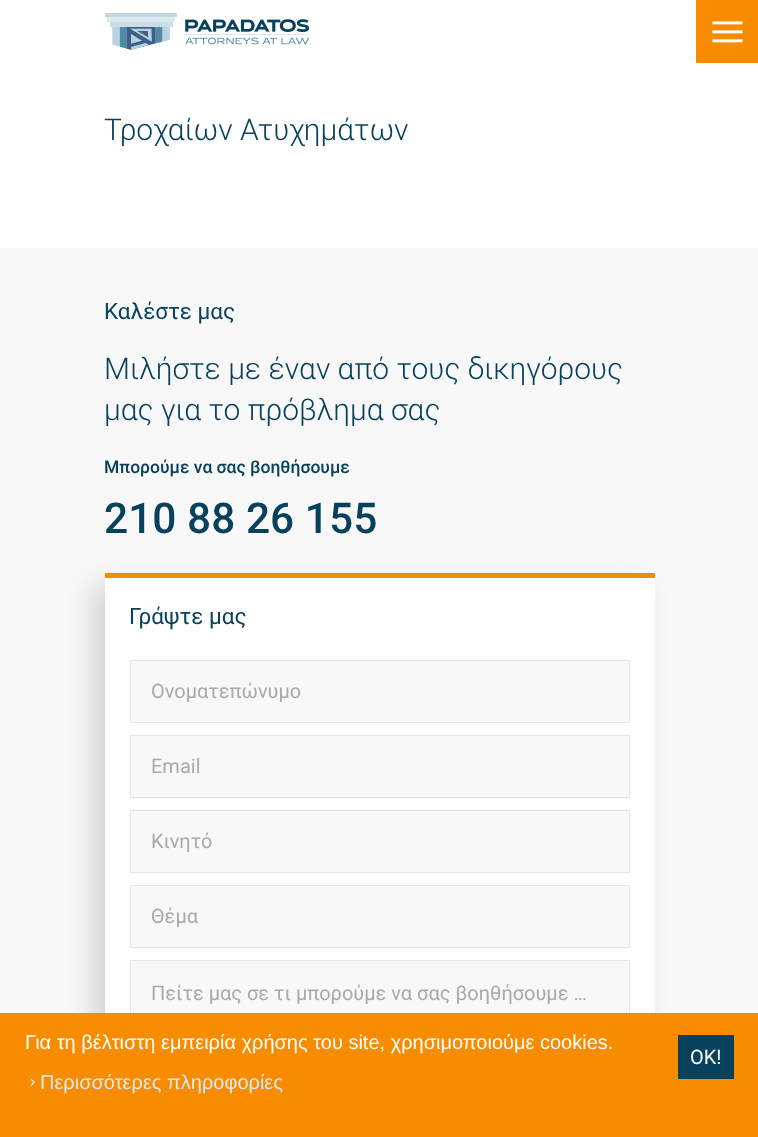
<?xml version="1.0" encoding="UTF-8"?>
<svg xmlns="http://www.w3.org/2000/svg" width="758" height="1137">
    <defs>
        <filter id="blur1" x="-50%" y="-200%" width="200%" height="500%"><feGaussianBlur stdDeviation="12.5"/></filter>
    </defs>
    <rect width="100%" height="100%" fill="#FFFFFF"/>
    <image x="105" y="13" width="204" height="37" href="img_01.png"/>
    <rect x="696" y="0" width="62" height="63" fill="#F78C00"/>
    <image x="712" y="21" width="31" height="22" href="img_02.png"/>
    <text x="104" y="140" font-family="Roboto" font-size="30" font-weight="300" fill="#08415C">Τροχαίων Ατυχημάτων</text>
    <rect x="0" y="248" width="758" height="765" fill="#F8F8F8"/>
    <text x="104" y="319" font-family="Roboto" font-size="22.5" fill="#08415C">Καλέστε μας</text>
    <text font-family="Roboto" font-size="30" font-weight="300" fill="#08415C">
        <tspan x="104" y="379">Μιλήστε με έναν από τους δικηγόρους</tspan>
        <tspan x="104" y="420">μας για το πρόβλημα σας</tspan>
    </text>
    <text x="104" y="473" font-family="Roboto" font-size="17.5" font-weight="500" fill="#08415C">Μπορούμε να σας βοηθήσουμε</text>
    <text x="104" y="533" font-family="Roboto" font-size="42.5" font-weight="500" fill="#08415C">210 88 26 155</text>
    <rect x="93" y="585" width="550" height="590" fill="#000000" fill-opacity="0.15" filter="url(#blur1)"/>
    <rect x="105" y="578" width="550" height="435" fill="#FFFFFF"/>
    <rect x="105" y="573" width="550" height="5" fill="#F78C00"/>
    <text x="129" y="624" font-family="Roboto" font-size="22.5" fill="#08415C">Γράψτε μας</text>
    <rect x="130.5" y="660.5" width="499" height="62" fill="#F8F8F8" stroke="#E5E5E5"/>
    <text x="151" y="698" font-family="Roboto" font-size="20" fill="#A9A9A9">Ονοματεπώνυμο</text>
    <rect x="130.5" y="735.5" width="499" height="62" fill="#F8F8F8" stroke="#E5E5E5"/>
    <text x="151" y="773" font-family="Roboto" font-size="20" fill="#A9A9A9">Email</text>
    <rect x="130.5" y="810.5" width="499" height="62" fill="#F8F8F8" stroke="#E5E5E5"/>
    <text x="151" y="848" font-family="Roboto" font-size="20" fill="#A9A9A9">Κινητό</text>
    <rect x="130.5" y="885.5" width="499" height="62" fill="#F8F8F8" stroke="#E5E5E5"/>
    <text x="151" y="923" font-family="Roboto" font-size="20" fill="#A9A9A9">Θέμα</text>
    <rect x="131" y="961" width="498" height="52" fill="#F8F8F8"/>
    <rect x="130.5" y="960.5" width="499" height="124" fill="none" stroke="#E5E5E5"/>
    <text x="151" y="1000" font-family="Roboto" font-size="20" fill="#A9A9A9">Πείτε μας σε τι μπορούμε να σας βοηθήσουμε …</text>
    <rect x="0" y="1013" width="758" height="124" fill="#F78C00"/>
    <text x="25" y="1049" font-family="Liberation Sans" font-size="20" fill="#FFFFFF">Για τη βέλτιστη εμπειρία χρήσης του site, χρησιμοποιούμε cookies.</text>
    <rect x="678" y="1035" width="56" height="44" fill="#08415C"/>
    <text x="690" y="1064" font-family="Roboto" font-size="20" fill="#FFFFFF">ΟΚ!</text>
    <image x="30" y="1078" width="5" height="8" href="img_03.png"/>
    <text x="40" y="1089" font-family="Liberation Sans" font-size="20" fill="#DBE9EF">Περισσότερες πληροφορίες</text>
</svg>
